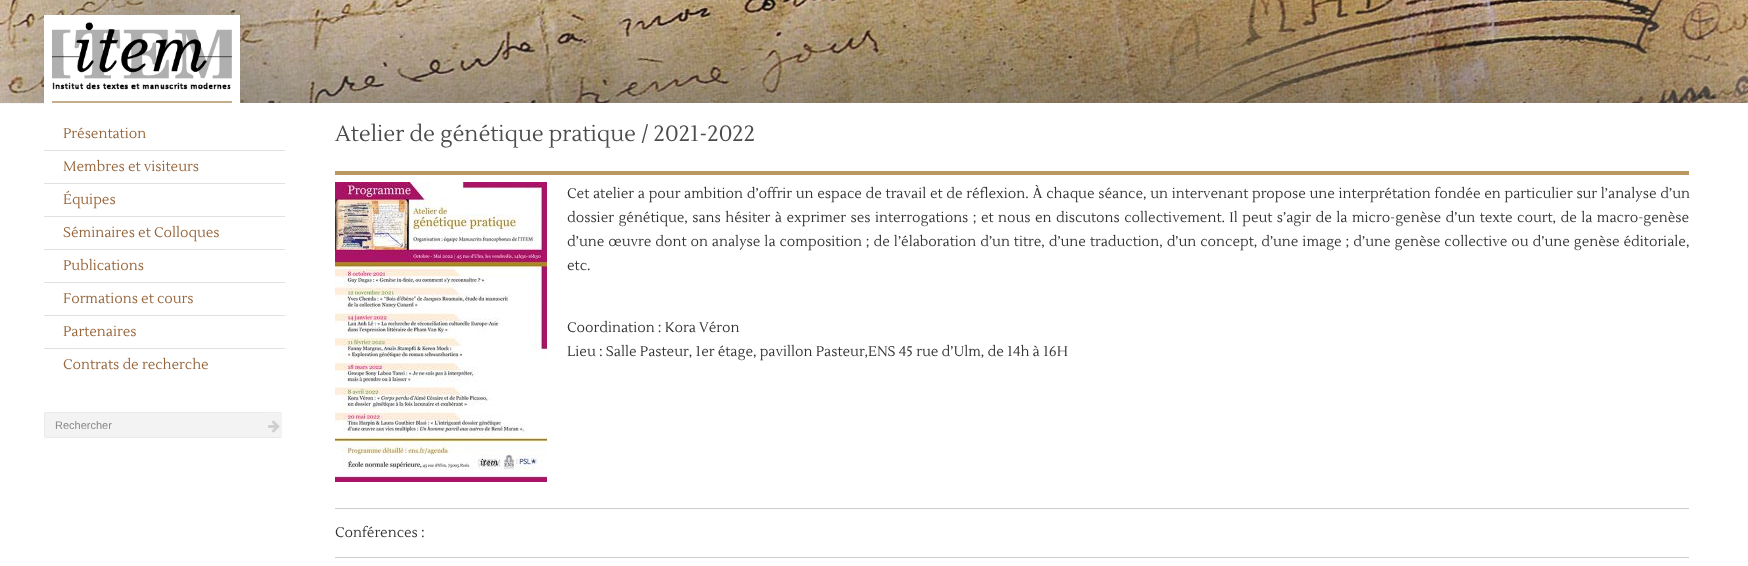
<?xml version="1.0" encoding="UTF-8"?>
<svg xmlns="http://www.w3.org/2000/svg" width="1748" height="566">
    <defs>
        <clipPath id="clip1"><rect x="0" y="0" width="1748" height="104"/></clipPath>
        <filter id="blur1" x="-50%" y="-200%" width="200%" height="500%"><feGaussianBlur stdDeviation="63"/></filter>
        <clipPath id="clip2"><rect x="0" y="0" width="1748" height="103"/></clipPath>
        <filter id="blur2" x="-50%" y="-200%" width="200%" height="500%"><feGaussianBlur stdDeviation="80"/></filter>
    </defs>
    <rect width="100%" height="100%" fill="#FFFFFF"/>
    <image x="0" y="0" width="1748" height="103" href="img_01.png"/>
    <g clip-path="url(#clip1)">
        <rect x="47" y="-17" width="190" height="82" fill="#4C4C4C" fill-opacity="0.55" filter="url(#blur1)"/>
    </g>
    <g clip-path="url(#clip2)">
        <rect x="0" y="87" width="1748" height="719" fill="#4C4C4C" fill-opacity="0.75" filter="url(#blur2)"/>
    </g>
    <rect x="44" y="15" width="196" height="88" fill="#FFFFFF"/>
    <image x="52" y="22" width="180" height="68" href="img_02.png"/>
    <rect x="52" y="101" width="180" height="2" fill="#C6AE8C"/>
    <rect x="44" y="103" width="256" height="1" fill="#FFFFFF"/>
    <rect x="44" y="150" width="241" height="1" fill="#E1E1E1"/>
    <text x="63" y="138" font-family="Lustria" font-size="14" fill="#97653A">Présentation</text>
    <rect x="44" y="183" width="241" height="1" fill="#E1E1E1"/>
    <text x="63" y="171" font-family="Lustria" font-size="14" fill="#97653A">Membres et visiteurs</text>
    <rect x="44" y="216" width="241" height="1" fill="#E1E1E1"/>
    <text x="63" y="204" font-family="Lustria" font-size="14" fill="#97653A">Équipes</text>
    <rect x="44" y="249" width="241" height="1" fill="#E1E1E1"/>
    <text x="63" y="237" font-family="Lustria" font-size="14" fill="#97653A">Séminaires et Colloques</text>
    <rect x="44" y="282" width="241" height="1" fill="#E1E1E1"/>
    <text x="63" y="270" font-family="Lustria" font-size="14" fill="#97653A">Publications</text>
    <rect x="44" y="315" width="241" height="1" fill="#E1E1E1"/>
    <text x="63" y="303" font-family="Lustria" font-size="14" fill="#97653A">Formations et cours</text>
    <rect x="44" y="348" width="241" height="1" fill="#E1E1E1"/>
    <text x="63" y="336" font-family="Lustria" font-size="14" fill="#97653A">Partenaires</text>
    <text x="63" y="369" font-family="Lustria" font-size="14" fill="#97653A">Contrats de recherche</text>
    <rect x="44" y="412" width="238" height="26" rx="2" fill="#F3F3F3"/>
    <rect x="45" y="412" width="236" height="1" fill="#E9E9E9"/>
    <rect x="45" y="437" width="236" height="1" fill="#E9E9E9"/>
    <rect x="44" y="413" width="1" height="24" fill="#E9E9E9"/>
    <text x="55" y="429" font-family="Liberation Sans" font-size="11" fill="#888888">Rechercher</text>
    <image x="268" y="420" width="12" height="13" href="img_03.png"/>
    <path d="M 264 413 H 282 C 284 413 285 414 285 416 C 285 410.5 280 412 276 412 H 264 Z" fill="#FFFFFF" fill-opacity="0.2"/>
    <text x="335" y="141" font-family="Lustria" font-size="22" fill="#4C4C4C">Atelier de génétique pratique / 2021-2022</text>
    <rect x="335" y="171" width="1354" height="4" fill="#BA9861"/>
    <image x="335" y="182" width="212" height="300" href="img_04.png"/>
    <text font-family="Lustria" font-size="14" fill="#333333">
        <tspan x="567" y="198" word-spacing="0.5">Cet atelier a pour ambition d’offrir un espace de travail et de réflexion. À chaque séance, un intervenant propose une interprétation fondée en particulier sur l’analyse d’un</tspan>
        <tspan x="567" y="222" word-spacing="1.25">dossier génétique, sans hésiter à exprimer ses interrogations ; et nous en discutons collectivement. Il peut s’agir de la micro-genèse d’un texte court, de la macro-genèse</tspan>
        <tspan x="567" y="246" word-spacing="0.75">d’une œuvre dont on analyse la composition ; de l’élaboration d’un titre, d’une traduction, d’un concept, d’une image ; d’une genèse collective ou d’une genèse éditoriale,</tspan>
        <tspan x="567" y="270">etc.</tspan>
    </text>
    <text font-family="Lustria" font-size="14" fill="#333333">
        <tspan x="567" y="332">Coordination : Kora Véron</tspan>
        <tspan x="567" y="356">Lieu : Salle Pasteur, 1er étage, pavillon Pasteur,ENS 45 rue d’Ulm, de 14h à 16H</tspan>
    </text>
    <rect x="335" y="508" width="1354" height="1" fill="#CCCCCC"/>
    <text x="335" y="537" font-family="Lustria" font-size="14" fill="#333333">Conférences :</text>
    <rect x="335" y="557" width="1354" height="1" fill="#CCCCCC"/>
</svg>
